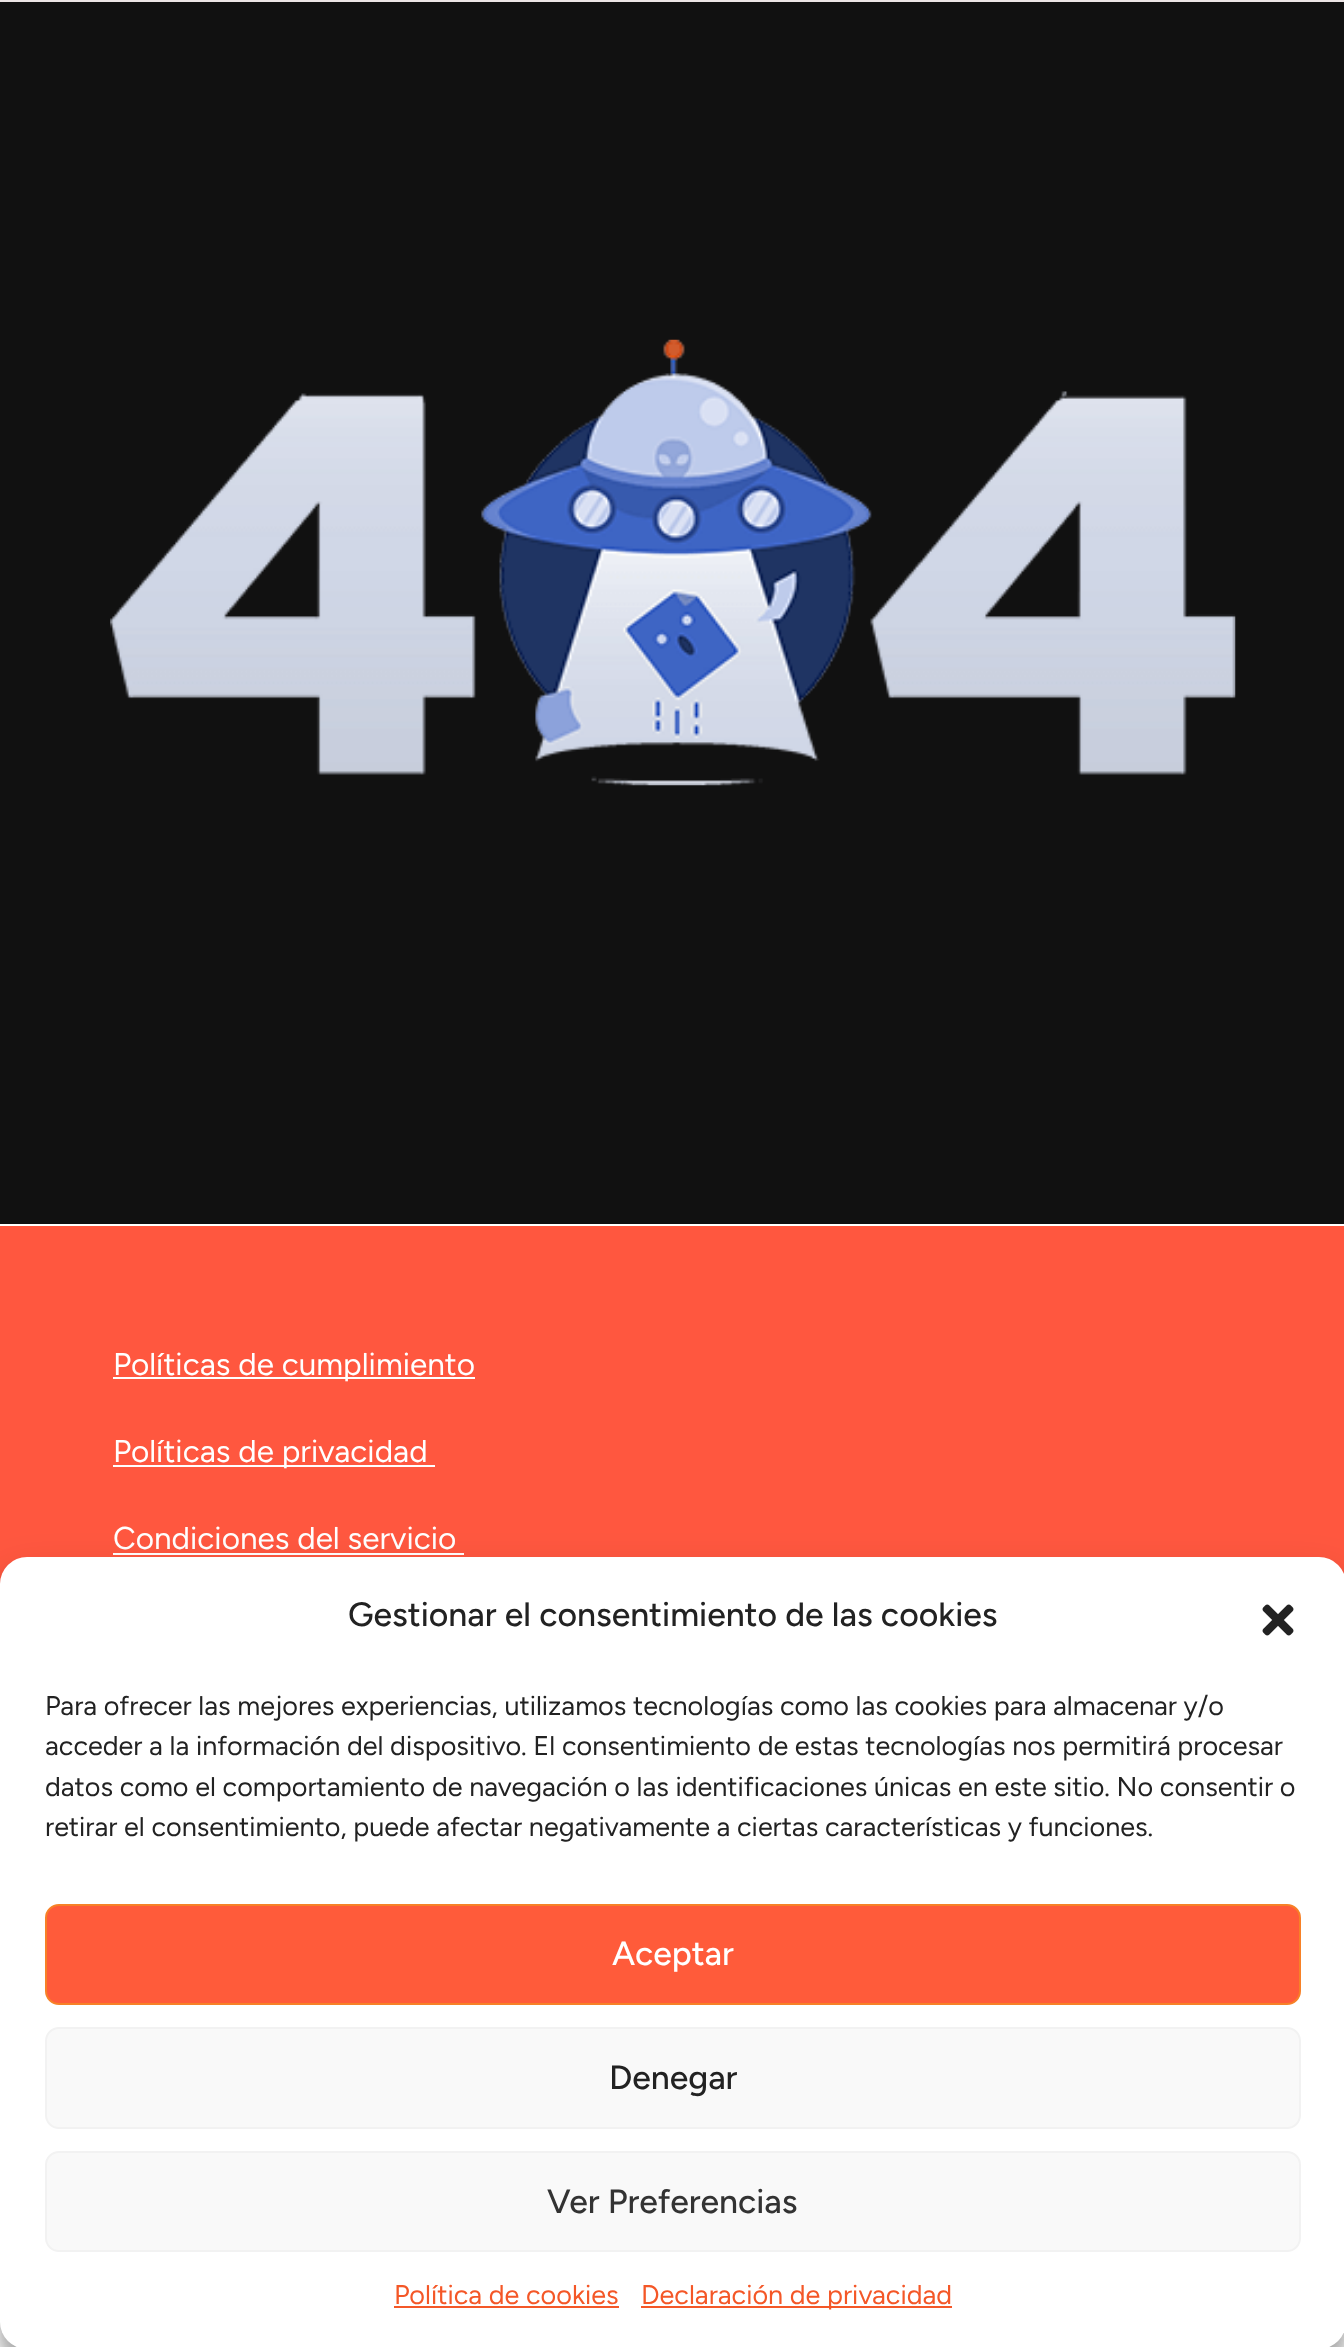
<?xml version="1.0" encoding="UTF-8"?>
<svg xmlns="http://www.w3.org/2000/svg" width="1344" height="2347">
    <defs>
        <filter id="blur1" x="-50%" y="-200%" width="200%" height="500%"><feGaussianBlur stdDeviation="7"/></filter>
        <filter id="blur2" x="-50%" y="-200%" width="200%" height="500%"><feGaussianBlur stdDeviation="22.5"/></filter>
    </defs>
    <rect width="100%" height="100%" fill="#FFFFFF"/>
    <rect x="0" y="0" width="1344" height="2" fill="#ECE5E5"/>
    <rect x="0" y="2" width="1344" height="1222" fill="#111111"/>
    <image x="110" y="339" width="1126" height="447" href="img_01.png"/>
    <rect x="0" y="1226" width="1344" height="358" fill="#FF573F"/>
    <rect x="113" y="1377" width="362" height="2" fill="#FFFFFF"/>
    <text x="113" y="1375" font-family="Figtree" font-size="31.5" fill="#FFFFFF">Políticas de cumplimiento</text>
    <rect x="113" y="1465" width="322" height="2" fill="#FFFFFF"/>
    <text x="113" y="1462" font-family="Figtree" font-size="31.5" fill="#FFFFFF">Políticas de privacidad</text>
    <text x="113" y="1549" font-family="Figtree" font-size="31.5" fill="#FFFFFF">Condiciones del servicio</text>
    <rect x="113" y="1553" width="351" height="2" fill="#FFFFFF"/>
    <rect x="0" y="1571" width="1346" height="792" rx="27" fill="#000000" fill-opacity="0.23" filter="url(#blur1)"/>
    <rect x="0" y="1580" width="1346" height="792" rx="27" fill="#000000" fill-opacity="0.19" filter="url(#blur2)"/>
    <rect x="0" y="1557" width="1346" height="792" rx="27" fill="#FFFFFF"/>
    <text x="348" y="1626" font-family="Figtree" font-size="33.75" font-weight="500" fill="#222222">Gestionar el consentimiento de las cookies</text>
    <image x="1262" y="1604" width="32" height="32" href="img_02.png"/>
    <text font-family="Figtree" font-size="27" fill="#222222">
        <tspan x="45" y="1715">Para ofrecer las mejores experiencias, utilizamos tecnologías como las cookies para almacenar y/o</tspan>
        <tspan x="45" y="1755">acceder a la información del dispositivo. El consentimiento de estas tecnologías nos permitirá procesar</tspan>
        <tspan x="45" y="1796">datos como el comportamiento de navegación o las identificaciones únicas en este sitio. No consentir o</tspan>
        <tspan x="45" y="1836">retirar el consentimiento, puede afectar negativamente a ciertas características y funciones.</tspan>
    </text>
    <rect x="46" y="1905" width="1254" height="99" rx="13" fill="#FF5B3A" stroke="#F78127" stroke-width="2"/>
    <text x="612" y="1965" font-family="Figtree" font-size="33.75" font-weight="500" fill="#FFFFFF">Aceptar</text>
    <rect x="46" y="2028" width="1254" height="100" rx="13" fill="#F9F9F9" stroke="#F2F2F2" stroke-width="2"/>
    <text x="609" y="2089" font-family="Figtree" font-size="33.75" font-weight="500" fill="#222222">Denegar</text>
    <rect x="46" y="2152" width="1254" height="99" rx="13" fill="#F9F9F9" stroke="#F2F2F2" stroke-width="2"/>
    <text x="547" y="2213" font-family="Figtree" font-size="33.75" font-weight="500" fill="#333333">Ver Preferencias</text>
    <text x="394" y="2304" font-family="Figtree" font-size="27" fill="#F45727">Política de cookies</text>
    <rect x="394" y="2306" width="225" height="2" fill="#F45727"/>
    <rect x="641" y="2306" width="311" height="2" fill="#F45727"/>
    <text x="641" y="2304" font-family="Figtree" font-size="27" fill="#F45727">Declaración de privacidad</text>
</svg>
